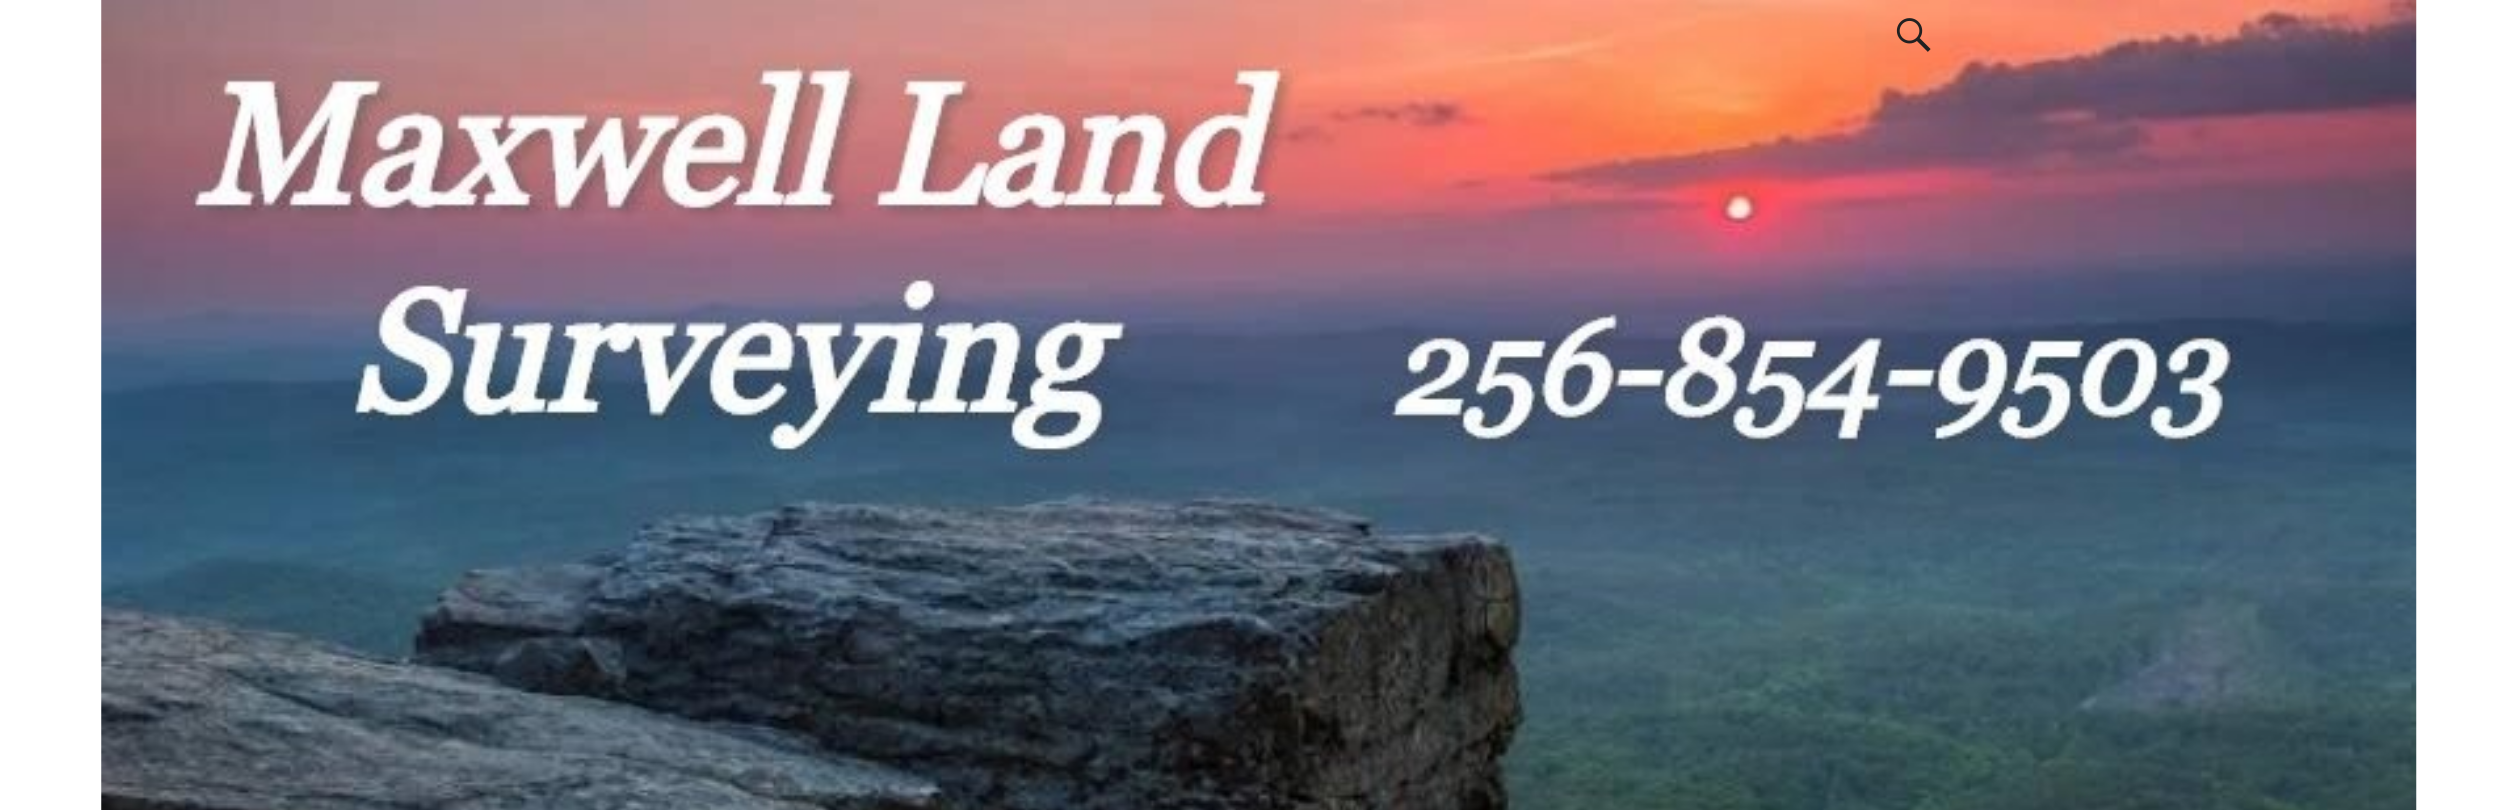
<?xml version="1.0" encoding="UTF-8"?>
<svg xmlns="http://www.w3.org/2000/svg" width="2517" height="810">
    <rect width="100%" height="100%" fill="#FFFFFF"/>
    <image x="101" y="0" width="2316" height="810" href="img_01.png"/>
    <image x="1896" y="18" width="35" height="34" href="img_02.png"/>
</svg>
